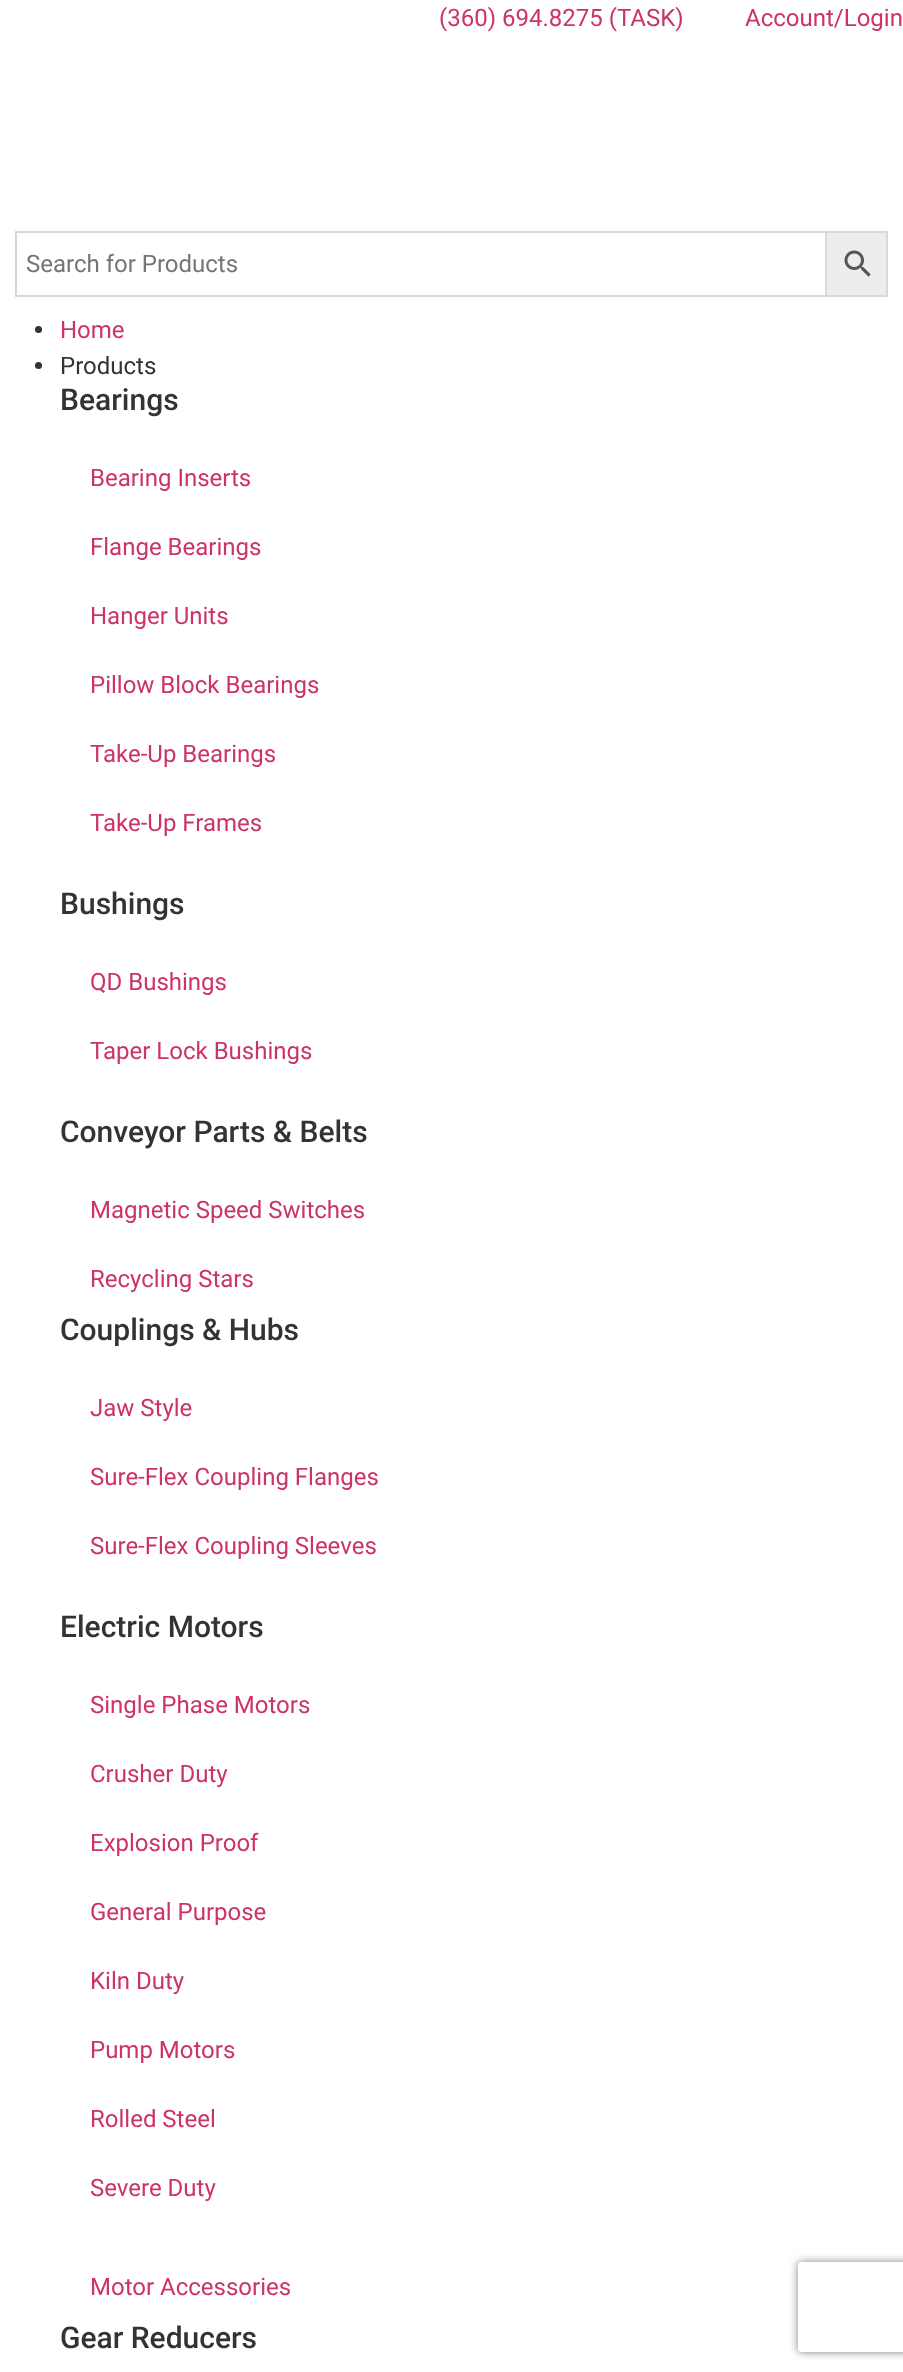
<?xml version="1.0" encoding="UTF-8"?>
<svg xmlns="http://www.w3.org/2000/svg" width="903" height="2372">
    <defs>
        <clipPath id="clip1"><path d="M 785 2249 H 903 V 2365 H 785 Z M 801 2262 H 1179 C 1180.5 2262 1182 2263.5 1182 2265 V 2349 C 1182 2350.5 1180.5 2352 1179 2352 H 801 C 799.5 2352 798 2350.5 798 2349 V 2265 C 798 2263.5 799.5 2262 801 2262 Z" clip-rule="evenodd"/></clipPath>
        <filter id="blur1" x="-50%" y="-200%" width="200%" height="500%"><feGaussianBlur stdDeviation="4"/></filter>
    </defs>
    <rect width="100%" height="100%" fill="#FFFFFF"/>
    <text x="439" y="26" font-family="Roboto" font-size="24" fill="#CC3366">(360) 694.8275 (TASK)</text>
    <text x="745" y="26" font-family="Roboto" font-size="24" fill="#CC3366">Account/Login</text>
    <rect x="826" y="232" width="61" height="64" fill="#EDEDED" stroke="#D8D8D8" stroke-width="2"/>
    <rect x="16" y="232" width="810" height="64" fill="none" stroke="#D8D8D8" stroke-width="2"/>
    <text x="26" y="272" font-family="Roboto" font-size="24" fill="#757575">Search for Products</text>
    <image x="844" y="250" width="27" height="27" href="img_01.png"/>
    <circle cx="38.5" cy="329.5" r="3.5" fill="#333333"/>
    <text x="60" y="338" font-family="Roboto" font-size="24" fill="#CC3366">Home</text>
    <circle cx="38.5" cy="365.5" r="3.5" fill="#333333"/>
    <text x="60" y="374" font-family="Roboto" font-size="24" fill="#333333">Products</text>
    <text x="60" y="410" font-family="Roboto" font-size="30" font-weight="500" fill="#333333">Bearings</text>
    <text x="90" y="486" font-family="Roboto" font-size="24" fill="#CC3366">Bearing Inserts</text>
    <text x="90" y="555" font-family="Roboto" font-size="24" fill="#CC3366">Flange Bearings</text>
    <text x="90" y="624" font-family="Roboto" font-size="24" fill="#CC3366">Hanger Units</text>
    <text x="90" y="693" font-family="Roboto" font-size="24" fill="#CC3366">Pillow Block Bearings</text>
    <text x="90" y="762" font-family="Roboto" font-size="24" fill="#CC3366">Take-Up Bearings</text>
    <text x="90" y="831" font-family="Roboto" font-size="24" fill="#CC3366">Take-Up Frames</text>
    <text x="60" y="914" font-family="Roboto" font-size="30" font-weight="500" fill="#333333">Bushings</text>
    <text x="90" y="990" font-family="Roboto" font-size="24" fill="#CC3366">QD Bushings</text>
    <text x="90" y="1059" font-family="Roboto" font-size="24" fill="#CC3366">Taper Lock Bushings</text>
    <text x="60" y="1142" font-family="Roboto" font-size="30" font-weight="500" fill="#333333">Conveyor Parts &amp; Belts</text>
    <text x="90" y="1218" font-family="Roboto" font-size="24" fill="#CC3366">Magnetic Speed Switches</text>
    <text x="90" y="1287" font-family="Roboto" font-size="24" fill="#CC3366">Recycling Stars</text>
    <text x="60" y="1340" font-family="Roboto" font-size="30" font-weight="500" fill="#333333">Couplings &amp; Hubs</text>
    <text x="90" y="1416" font-family="Roboto" font-size="24" fill="#CC3366">Jaw Style</text>
    <text x="90" y="1485" font-family="Roboto" font-size="24" fill="#CC3366">Sure-Flex Coupling Flanges</text>
    <text x="90" y="1554" font-family="Roboto" font-size="24" fill="#CC3366">Sure-Flex Coupling Sleeves</text>
    <text x="60" y="1637" font-family="Roboto" font-size="30" font-weight="500" fill="#333333">Electric Motors</text>
    <text x="90" y="1713" font-family="Roboto" font-size="24" fill="#CC3366">Single Phase Motors</text>
    <text x="90" y="1782" font-family="Roboto" font-size="24" fill="#CC3366">Crusher Duty</text>
    <text x="90" y="1851" font-family="Roboto" font-size="24" fill="#CC3366">Explosion Proof</text>
    <text x="90" y="1920" font-family="Roboto" font-size="24" fill="#CC3366">General Purpose</text>
    <text x="90" y="1989" font-family="Roboto" font-size="24" fill="#CC3366">Kiln Duty</text>
    <text x="90" y="2058" font-family="Roboto" font-size="24" fill="#CC3366">Pump Motors</text>
    <text x="90" y="2127" font-family="Roboto" font-size="24" fill="#CC3366">Rolled Steel</text>
    <text x="90" y="2196" font-family="Roboto" font-size="24" fill="#CC3366">Severe Duty</text>
    <text x="90" y="2295" font-family="Roboto" font-size="24" fill="#CC3366">Motor Accessories</text>
    <text x="60" y="2348" font-family="Roboto" font-size="30" font-weight="500" fill="#333333">Gear Reducers</text>
    <g clip-path="url(#clip1)">
        <rect x="798" y="2262" width="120" height="90" rx="3" fill="#808080" filter="url(#blur1)"/>
    </g>
</svg>
